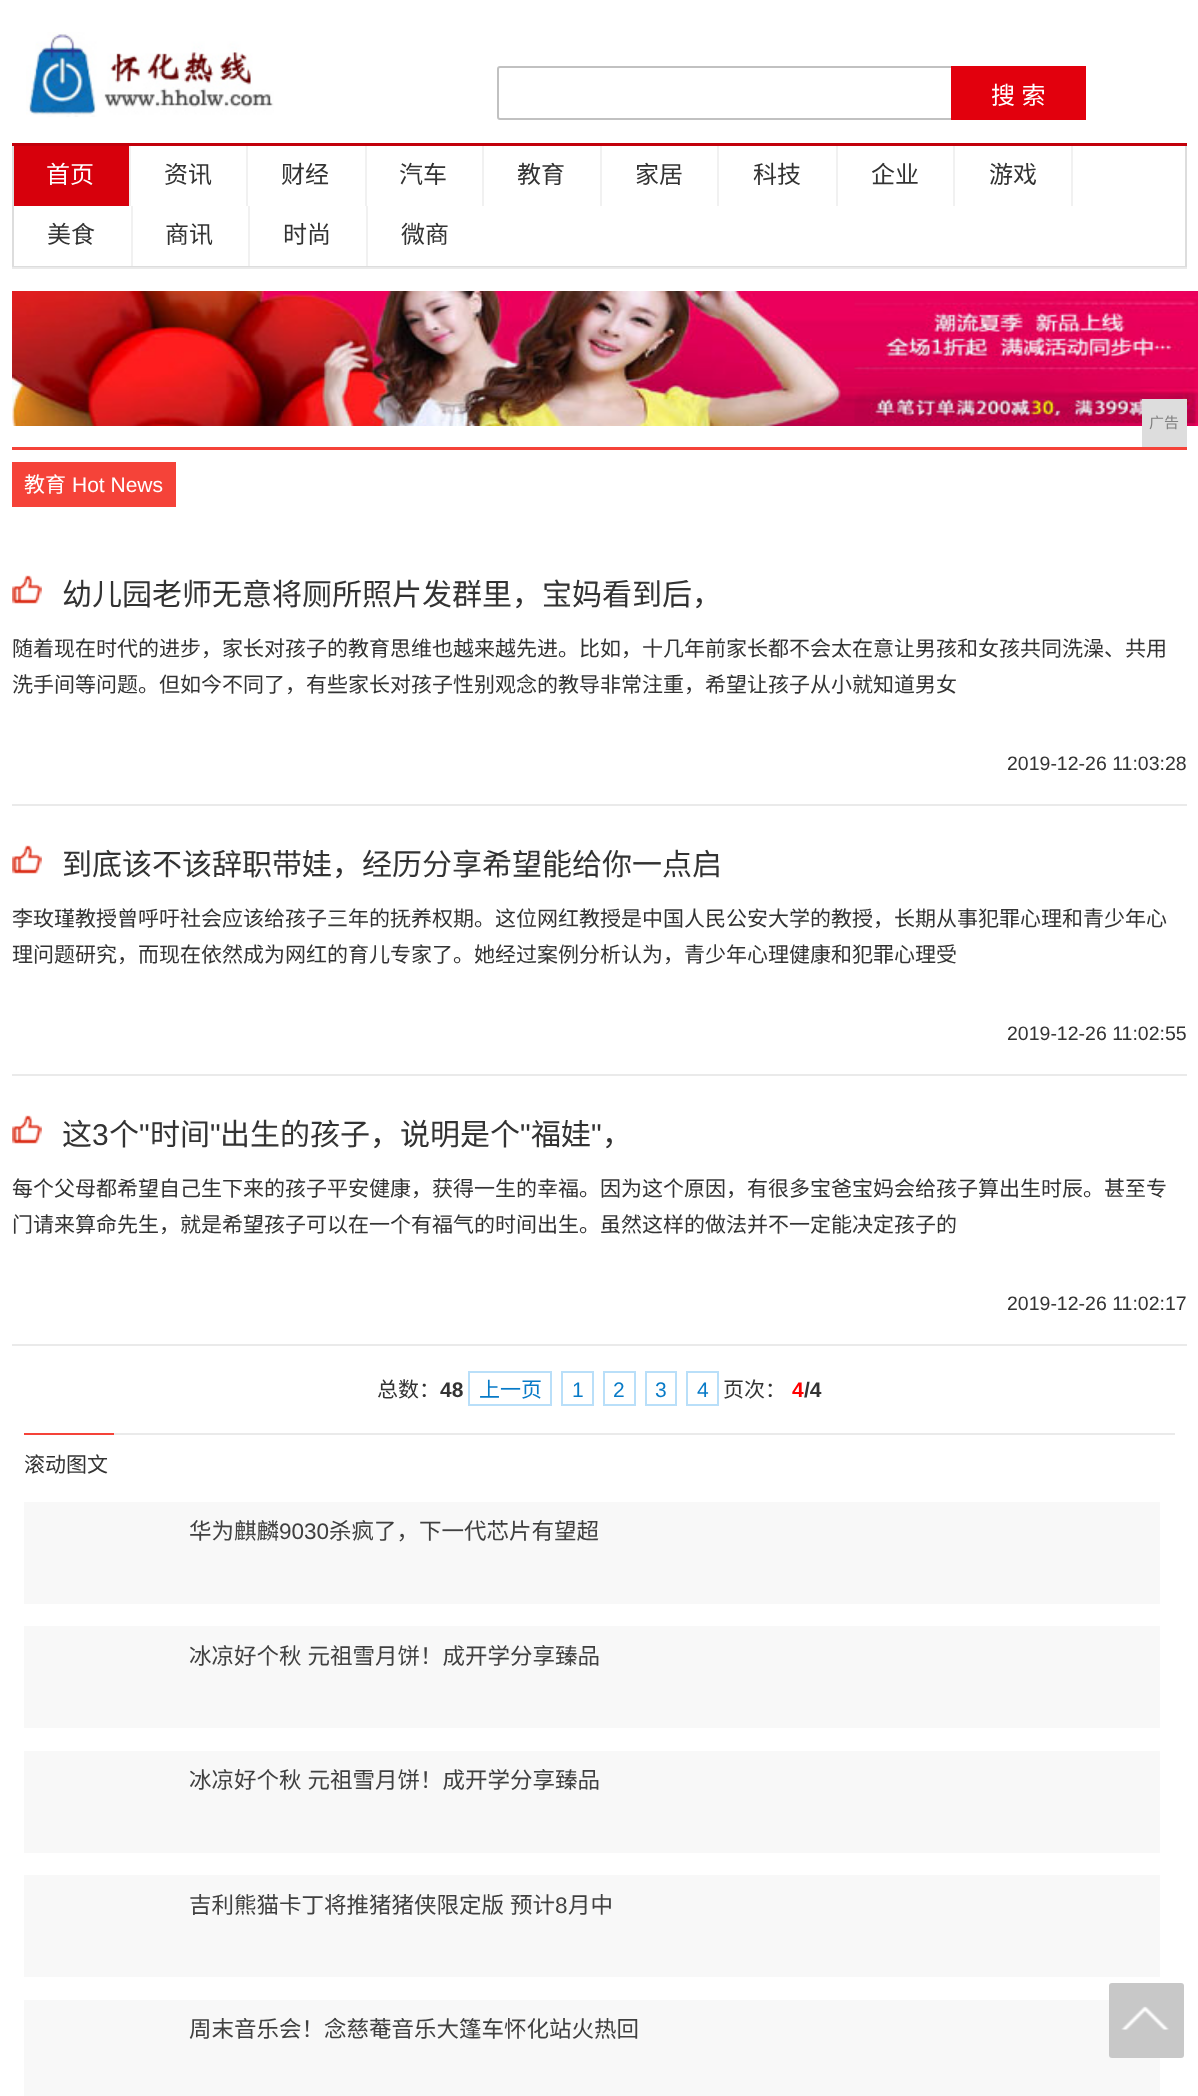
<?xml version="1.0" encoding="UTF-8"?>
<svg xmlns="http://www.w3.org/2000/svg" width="1198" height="2096">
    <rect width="100%" height="100%" fill="#FFFFFF"/>
    <image x="26" y="32" width="248" height="85" href="img_01.png"/>
    <path d="M 500 67 H 952 V 119 H 500 C 499 119 498 118 498 117 V 69 C 498 68 499 67 500 67 Z" fill="none" stroke="#C1C1C1" stroke-width="2"/>
    <rect x="951" y="66" width="135" height="54" fill="#E2000D"/>
    <text x="991" y="104" word-spacing="1" font-family="Noto Sans CJK SC" font-size="24" fill="#FFFFFF">搜 索</text>
    <rect x="12" y="143" width="1175" height="3" fill="#C2000B"/>
    <rect x="12" y="267" width="1175" height="2" fill="#EAEAEA"/>
    <rect x="1185" y="146" width="2" height="121" fill="#DDDDDD"/>
    <rect x="12" y="266" width="1175" height="1" fill="#DDDDDD"/>
    <rect x="12" y="146" width="2" height="121" fill="#DDDDDD"/>
    <rect x="129" y="146" width="2" height="60" fill="#F1F1F1"/>
    <rect x="14" y="146" width="115" height="60" fill="#D7000C"/>
    <text x="46" y="183" font-family="Noto Sans CJK SC" font-size="24" fill="#FFFFFF">首页</text>
    <rect x="246" y="146" width="2" height="60" fill="#F1F1F1"/>
    <text x="164" y="183" font-family="Noto Sans CJK SC" font-size="24" fill="#333333">资讯</text>
    <rect x="365" y="146" width="2" height="60" fill="#F1F1F1"/>
    <text x="281" y="183" font-family="Noto Sans CJK SC" font-size="24" fill="#333333">财经</text>
    <rect x="482" y="146" width="2" height="60" fill="#F1F1F1"/>
    <text x="399" y="183" font-family="Noto Sans CJK SC" font-size="24" fill="#333333">汽车</text>
    <rect x="600" y="146" width="2" height="60" fill="#F1F1F1"/>
    <text x="517" y="183" font-family="Noto Sans CJK SC" font-size="24" fill="#333333">教育</text>
    <rect x="717" y="146" width="2" height="60" fill="#F1F1F1"/>
    <text x="635" y="183" font-family="Noto Sans CJK SC" font-size="24" fill="#333333">家居</text>
    <rect x="836" y="146" width="2" height="60" fill="#F1F1F1"/>
    <text x="753" y="183" font-family="Noto Sans CJK SC" font-size="24" fill="#333333">科技</text>
    <rect x="953" y="146" width="2" height="60" fill="#F1F1F1"/>
    <text x="871" y="183" font-family="Noto Sans CJK SC" font-size="24" fill="#333333">企业</text>
    <rect x="1071" y="146" width="2" height="60" fill="#F1F1F1"/>
    <text x="989" y="183" font-family="Noto Sans CJK SC" font-size="24" fill="#333333">游戏</text>
    <rect x="131" y="206" width="2" height="60" fill="#F1F1F1"/>
    <text x="47" y="243" font-family="Noto Sans CJK SC" font-size="24" fill="#333333">美食</text>
    <rect x="248" y="206" width="2" height="60" fill="#F1F1F1"/>
    <text x="165" y="243" font-family="Noto Sans CJK SC" font-size="24" fill="#333333">商讯</text>
    <rect x="366" y="206" width="2" height="60" fill="#F1F1F1"/>
    <text x="283" y="243" font-family="Noto Sans CJK SC" font-size="24" fill="#333333">时尚</text>
    <text x="401" y="243" font-family="Noto Sans CJK SC" font-size="24" fill="#333333">微商</text>
    <image x="12" y="291" width="1186" height="135" href="img_02.png"/>
    <rect x="1142" y="399" width="45" height="48" fill="#DDDDDD"/>
    <text x="1149" y="428" font-family="Noto Sans CJK SC" font-size="15" fill="#808080">广告</text>
    <rect x="12" y="447" width="1175" height="3" fill="#F54339"/>
    <rect x="12" y="462" width="164" height="45" fill="#F54339"/>
    <text x="24" y="492" font-family="Noto Sans CJK SC" font-size="21" fill="#FFFFFF">教育</text>
    <text x="72" y="492" font-family="Liberation Sans" font-size="21" fill="#FFFFFF">Hot News</text>
    <rect x="12" y="804" width="1175" height="2" fill="#EAEAEA"/>
    <image x="12" y="575" width="30" height="29" href="img_03.png"/>
    <text x="62" y="605" font-family="Noto Sans CJK SC" font-size="30" fill="#333333">幼儿园老师无意将厕所照片发群里，宝妈看到后，</text>
    <text font-family="Noto Sans CJK SC" font-size="21" fill="#333333">
        <tspan x="12" y="656">随着现在时代的进步，家长对孩子的教育思维也越来越先进。比如，十几年前家长都不会太在意让男孩和女孩共同洗澡、共用</tspan>
        <tspan x="12" y="692">洗手间等问题。但如今不同了，有些家长对孩子性别观念的教导非常注重，希望让孩子从小就知道男女</tspan>
    </text>
    <text x="1007" y="770" font-family="Liberation Sans" font-size="19.5" fill="#333333">2019-12-26 11:03:28</text>
    <rect x="12" y="1074" width="1175" height="2" fill="#EAEAEA"/>
    <image x="12" y="845" width="30" height="29" href="img_03.png"/>
    <text x="62" y="875" font-family="Noto Sans CJK SC" font-size="30" fill="#333333">到底该不该辞职带娃，经历分享希望能给你一点启</text>
    <text font-family="Noto Sans CJK SC" font-size="21" fill="#333333">
        <tspan x="12" y="926">李玫瑾教授曾呼吁社会应该给孩子三年的抚养权期。这位网红教授是中国人民公安大学的教授，长期从事犯罪心理和青少年心</tspan>
        <tspan x="12" y="962">理问题研究，而现在依然成为网红的育儿专家了。她经过案例分析认为，青少年心理健康和犯罪心理受</tspan>
    </text>
    <text x="1007" y="1040" font-family="Liberation Sans" font-size="19.5" fill="#333333">2019-12-26 11:02:55</text>
    <rect x="12" y="1344" width="1175" height="2" fill="#EAEAEA"/>
    <image x="12" y="1115" width="30" height="29" href="img_03.png"/>
    <text x="62" y="1145" font-family="Noto Sans CJK SC" font-size="30" fill="#333333">这</text>
    <text x="92" y="1145" font-family="Liberation Sans" font-size="30" fill="#333333">3</text>
    <text x="109" y="1145" font-family="Noto Sans CJK SC" font-size="30" fill="#333333">个</text>
    <text x="139" y="1145" font-family="Liberation Sans" font-size="30" fill="#333333">"</text>
    <text x="150" y="1145" font-family="Noto Sans CJK SC" font-size="30" fill="#333333">时间</text>
    <text x="210" y="1145" font-family="Liberation Sans" font-size="30" fill="#333333">"</text>
    <text x="220" y="1145" font-family="Noto Sans CJK SC" font-size="30" fill="#333333">出生的孩子，说明是个</text>
    <text x="520" y="1145" font-family="Liberation Sans" font-size="30" fill="#333333">"</text>
    <text x="531" y="1145" font-family="Noto Sans CJK SC" font-size="30" fill="#333333">福娃</text>
    <text x="591" y="1145" font-family="Liberation Sans" font-size="30" fill="#333333">"</text>
    <text x="602" y="1145" font-family="Noto Sans CJK SC" font-size="30" fill="#333333">，</text>
    <text font-family="Noto Sans CJK SC" font-size="21" fill="#333333">
        <tspan x="12" y="1196">每个父母都希望自己生下来的孩子平安健康，获得一生的幸福。因为这个原因，有很多宝爸宝妈会给孩子算出生时辰。甚至专</tspan>
        <tspan x="12" y="1232">门请来算命先生，就是希望孩子可以在一个有福气的时间出生。虽然这样的做法并不一定能决定孩子的</tspan>
    </text>
    <text x="1007" y="1310" font-family="Liberation Sans" font-size="19.5" fill="#333333">2019-12-26 11:02:17</text>
    <text x="377" y="1397" font-family="Noto Sans CJK SC" font-size="21" fill="#333333">总数：</text>
    <text x="440" y="1397" font-family="Liberation Sans" font-size="21" font-weight="700" fill="#333333">48</text>
    <rect x="469" y="1372" width="82" height="33" fill="none" stroke="#B9DFF9" stroke-width="2"/>
    <text x="479" y="1397" font-family="Noto Sans CJK SC" font-size="21" fill="#077AC7">上一页</text>
    <rect x="562" y="1372" width="31" height="33" fill="none" stroke="#B9DFF9" stroke-width="2"/>
    <text x="572" y="1397" font-family="Liberation Sans" font-size="21" fill="#077AC7">1</text>
    <rect x="604" y="1372" width="31" height="33" fill="none" stroke="#B9DFF9" stroke-width="2"/>
    <text x="613" y="1397" font-family="Liberation Sans" font-size="21" fill="#077AC7">2</text>
    <rect x="646" y="1372" width="30" height="33" fill="none" stroke="#B9DFF9" stroke-width="2"/>
    <text x="655" y="1397" font-family="Liberation Sans" font-size="21" fill="#077AC7">3</text>
    <rect x="687" y="1372" width="31" height="33" fill="none" stroke="#B9DFF9" stroke-width="2"/>
    <text x="697" y="1397" font-family="Liberation Sans" font-size="21" fill="#077AC7">4</text>
    <text x="723" y="1397" font-family="Noto Sans CJK SC" font-size="21" fill="#333333">页次：</text>
    <text x="792" y="1397" font-family="Liberation Sans" font-size="21" font-weight="700" fill="#FF0000">4</text>
    <text x="804" y="1397" font-family="Liberation Sans" font-size="21" font-weight="700" fill="#333333">/4</text>
    <rect x="114" y="1433" width="1061" height="2" fill="#EAEAEA"/>
    <rect x="24" y="1433" width="90" height="2" fill="#F54339"/>
    <text x="24" y="1472" font-family="Noto Sans CJK SC" font-size="21" fill="#333333">滚动图文</text>
    <rect x="24" y="1502" width="1136" height="102" fill="#F8F8F8"/>
    <text x="189" y="1539" font-family="Noto Sans CJK SC" font-size="22.5" fill="#404040">华为麒麟</text>
    <text x="279" y="1539" font-family="Liberation Sans" font-size="22.5" fill="#404040">9030</text>
    <text x="329" y="1539" font-family="Noto Sans CJK SC" font-size="22.5" fill="#404040">杀疯了，下一代芯片有望超</text>
    <rect x="24" y="1626" width="1136" height="102" fill="#F8F8F8"/>
    <text x="189" y="1664" word-spacing="1" font-family="Noto Sans CJK SC" font-size="22.5" fill="#404040">冰凉好个秋 元祖雪月饼！成开学分享臻品</text>
    <rect x="24" y="1751" width="1136" height="102" fill="#F8F8F8"/>
    <text x="189" y="1788" word-spacing="1" font-family="Noto Sans CJK SC" font-size="22.5" fill="#404040">冰凉好个秋 元祖雪月饼！成开学分享臻品</text>
    <rect x="24" y="1875" width="1136" height="102" fill="#F8F8F8"/>
    <text x="189" y="1913" word-spacing="1" font-family="Noto Sans CJK SC" font-size="22.5" fill="#404040">吉利熊猫卡丁将推猪猪侠限定版 预计</text>
    <text x="555" y="1913" font-family="Liberation Sans" font-size="22.5" fill="#404040">8</text>
    <text x="568" y="1913" font-family="Noto Sans CJK SC" font-size="22.5" fill="#404040">月中</text>
    <rect x="24" y="2000" width="1136" height="96" fill="#F8F8F8"/>
    <text x="189" y="2037" font-family="Noto Sans CJK SC" font-size="22.5" fill="#404040">周末音乐会！念慈菴音乐大篷车怀化站火热回</text>
    <rect x="1109" y="1983" width="75" height="75" rx="3" fill="#C8C8C8"/>
    <image x="1121" y="2006" width="48" height="24" href="img_04.png"/>
</svg>
